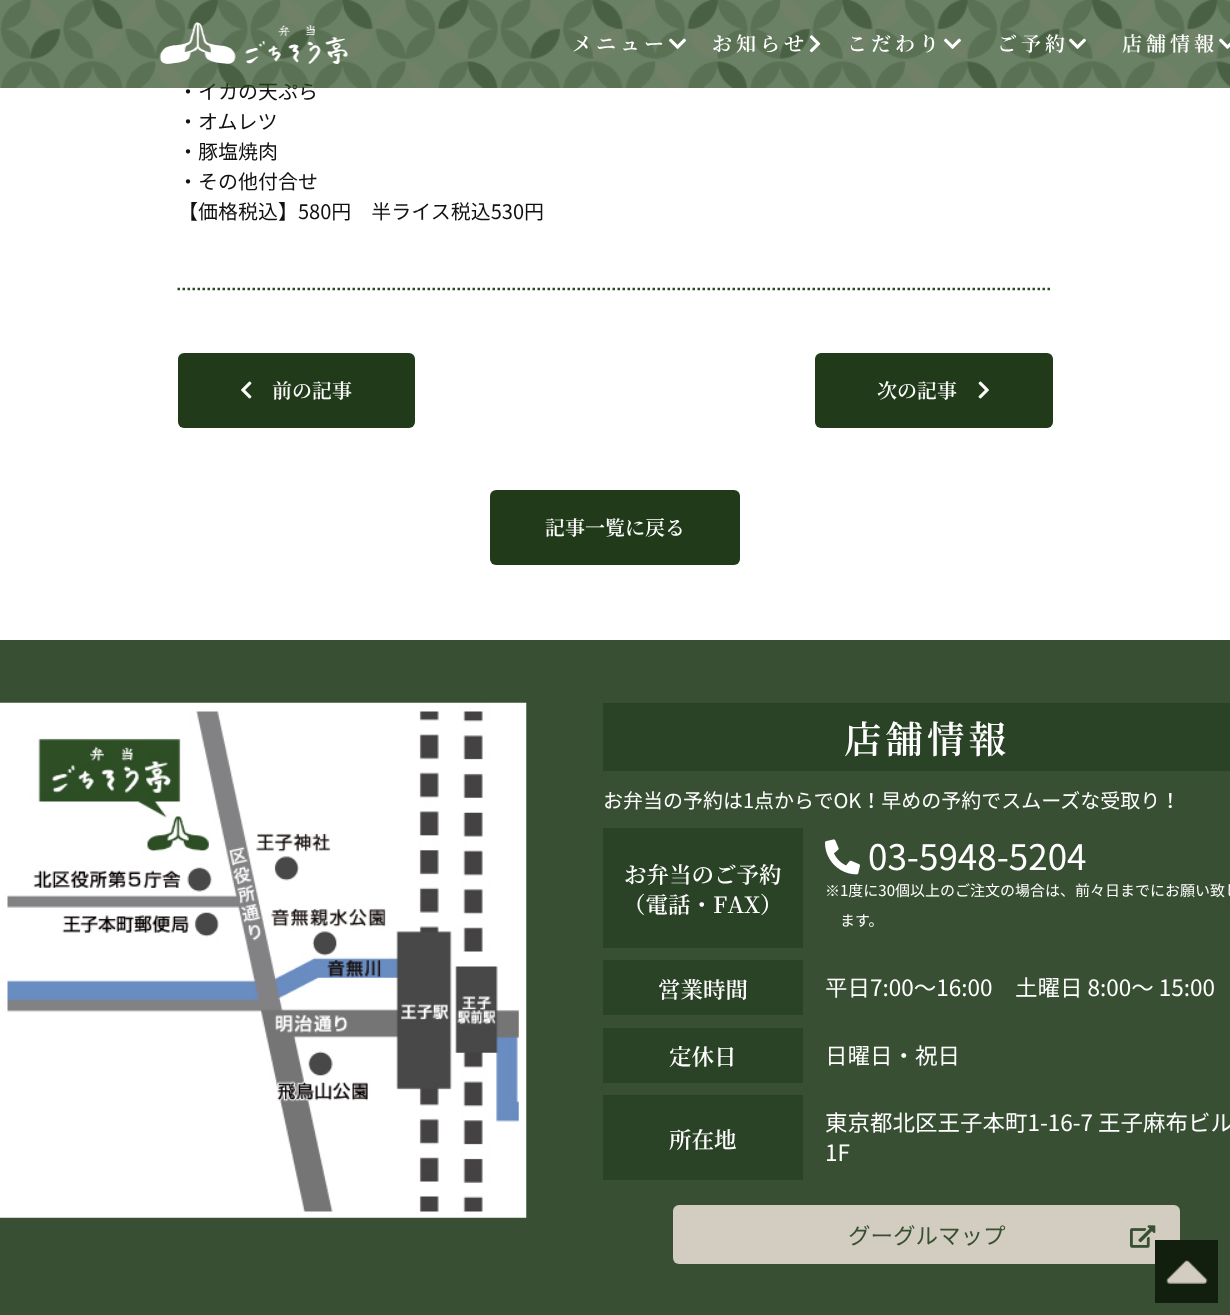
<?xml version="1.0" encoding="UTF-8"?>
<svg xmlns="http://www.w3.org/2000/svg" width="1230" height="1315">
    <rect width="100%" height="100%" fill="#FFFFFF"/>
    <text x="178" y="99" font-family="Noto Sans JP" font-size="20" fill="#111111">・イカの天ぷら</text>
    <image x="0" y="0" width="1230" height="88" href="img_01.png"/>
    <image x="159" y="22" width="189" height="42" href="img_02.png"/>
    <text x="572" y="51" font-family="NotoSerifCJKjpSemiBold" font-size="20" font-weight="600" letter-spacing="4" fill="#FFFFFF">メニュー</text>
    <image x="669" y="38" width="17" height="11" href="img_03.png"/>
    <text x="712" y="51" font-family="NotoSerifCJKjpSemiBold" font-size="20" font-weight="600" letter-spacing="4" fill="#FFFFFF">お知らせ</text>
    <image x="809" y="35" width="12" height="18" href="img_04.png"/>
    <text x="847" y="51" font-family="NotoSerifCJKjpSemiBold" font-size="20" font-weight="600" letter-spacing="4" fill="#FFFFFF">こだわり</text>
    <image x="944" y="38" width="17" height="11" href="img_05.png"/>
    <text x="997" y="51" font-family="NotoSerifCJKjpSemiBold" font-size="20" font-weight="600" letter-spacing="4" fill="#FFFFFF">ご予約</text>
    <image x="1069" y="38" width="17" height="11" href="img_06.png"/>
    <text x="1122" y="51" font-family="NotoSerifCJKjpSemiBold" font-size="20" font-weight="600" letter-spacing="4" fill="#FFFFFF">店舗情報</text>
    <image x="1219" y="38" width="11" height="11" href="img_07.png"/>
    <path d="M 177.5 289 H 1052.5" fill="none" stroke="#2B4926" stroke-width="2.5" stroke-dasharray="2.5 2.5"/>
    <text font-family="Noto Sans JP" font-size="20" fill="#111111">
        <tspan x="178" y="129">・オムレツ</tspan>
        <tspan x="178" y="159">・豚塩焼肉</tspan>
        <tspan x="178" y="189">・その他付合せ</tspan>
        <tspan x="178" y="219">【価格税込】580円　半ライス税込530円</tspan>
    </text>
    <rect x="178" y="353" width="237" height="75" rx="6" fill="#213B1A"/>
    <image x="241" y="381" width="11" height="18" href="img_08.png"/>
    <text x="272" y="398" font-family="NotoSerifCJKjpSemiBold" font-size="20" font-weight="600" fill="#FFFFFF">前の記事</text>
    <rect x="815" y="353" width="238" height="75" rx="6" fill="#213B1A"/>
    <text x="877" y="398" font-family="NotoSerifCJKjpSemiBold" font-size="20" font-weight="600" fill="#FFFFFF">次の記事</text>
    <image x="978" y="381" width="11" height="18" href="img_09.png"/>
    <rect x="490" y="490" width="250" height="75" rx="6" fill="#213B1A"/>
    <text x="545" y="535" font-family="NotoSerifCJKjpSemiBold" font-size="20" font-weight="600" fill="#FFFFFF">記事一覧に戻る</text>
    <rect x="0" y="640" width="1230" height="675" fill="#384F33"/>
    <rect x="603" y="703" width="627" height="68" fill="#2A4226"/>
    <text x="844" y="753" font-family="NotoSerifCJKjpSemiBold" font-size="37.5" font-weight="600" letter-spacing="4" fill="#FFFFFF">店舗情報</text>
    <text x="603" y="808" font-family="Noto Sans JP" font-size="20" fill="#FFFFFF">お弁当の予約は1点からでOK！早めの予約でスムーズな受取り！</text>
    <image x="0" y="702" width="527" height="516" href="img_10.png"/>
    <rect x="603" y="828" width="200" height="120" fill="#2A4226"/>
    <text x="624" y="883" font-family="NotoSerifCJKjpSemiBold" font-size="22.5" font-weight="600" fill="#FFFFFF">お弁当のご予約</text>
    <text x="623" y="913" font-family="NotoSerifCJKjpSemiBold" font-size="22.5" font-weight="600" fill="#FFFFFF">（電話・FAX）</text>
    <image x="825" y="839" width="35" height="36" href="img_11.png"/>
    <text x="868" y="870" font-family="Noto Sans JP" font-size="35" fill="#FFFFFF">03-5948-5204</text>
    <text x="825" y="896" font-family="WenQuanYi Zen Hei" font-size="15" font-weight="500" fill="#FFFFFF">※</text>
    <text x="840" y="896" font-family="Noto Sans JP" font-size="15" fill="#FFFFFF">1度に30個以上のご注文の場合は、前々日までにお願い致し</text>
    <text x="840" y="926" font-family="Noto Sans JP" font-size="15" fill="#FFFFFF">ます。</text>
    <rect x="603" y="960" width="200" height="55" fill="#2A4226"/>
    <text x="658" y="998" font-family="NotoSerifCJKjpSemiBold" font-size="22.5" font-weight="600" fill="#FFFFFF">営業時間</text>
    <text x="825" y="996" font-family="Noto Sans JP" font-size="22.5" fill="#FFFFFF">平日7:00〜16:00</text>
    <text x="1015" y="996" font-family="Noto Sans JP" font-size="22.5" fill="#FFFFFF">土曜日 8:00〜 15:00</text>
    <rect x="603" y="1028" width="200" height="55" fill="#2A4226"/>
    <text x="669" y="1065" font-family="NotoSerifCJKjpSemiBold" font-size="22.5" font-weight="600" fill="#FFFFFF">定休日</text>
    <text x="825" y="1064" font-family="Noto Sans JP" font-size="22.5" fill="#FFFFFF">日曜日・祝日</text>
    <rect x="603" y="1095" width="200" height="85" fill="#2A4226"/>
    <text x="669" y="1148" font-family="NotoSerifCJKjpSemiBold" font-size="22.5" font-weight="600" fill="#FFFFFF">所在地</text>
    <text font-family="Noto Sans JP" font-size="22.5" fill="#FFFFFF">
        <tspan x="825" y="1131">東京都北区王子本町1-16-7 王子麻布ビル</tspan>
        <tspan x="825" y="1161">1F</tspan>
    </text>
    <rect x="673" y="1205" width="507" height="59" rx="6" fill="#D2CDC0"/>
    <text x="848" y="1244" font-family="Noto Sans JP" font-size="22.5" fill="#385031">グーグルマップ</text>
    <image x="1130" y="1225" width="26" height="23" href="img_12.png"/>
    <image x="1155" y="1240" width="63" height="63" href="img_13.png"/>
</svg>
